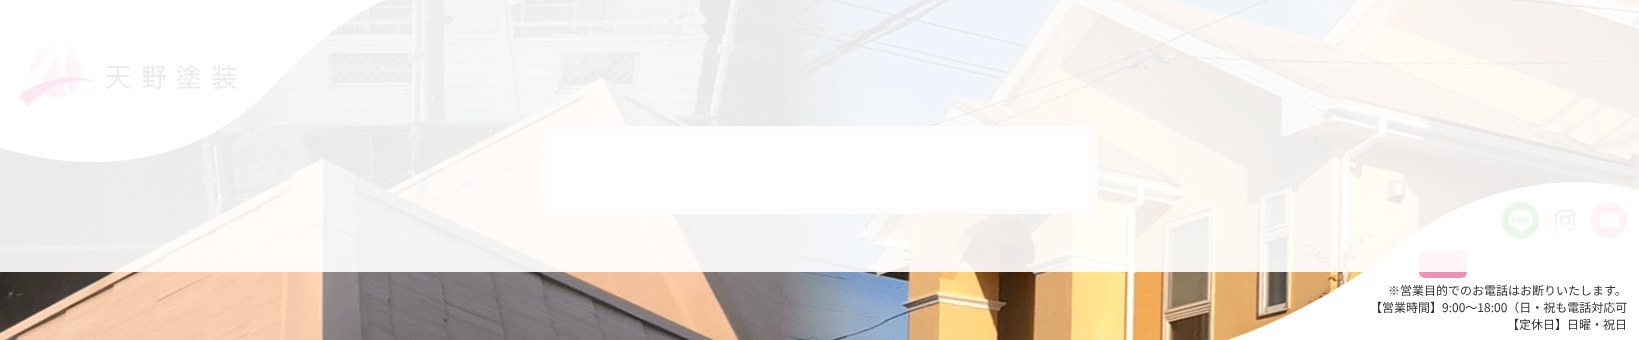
<?xml version="1.0" encoding="UTF-8"?>
<svg xmlns="http://www.w3.org/2000/svg" width="1639" height="340">
    <rect width="100%" height="100%" fill="#FFFFFF"/>
    <image x="0" y="0" width="1639" height="340" href="img_01.png"/>
    <rect x="546" y="130" width="548" height="80" rx="4" fill="#FFFFFF" stroke="#FFDEEB" stroke-width="8"/>
    <image x="0" y="0" width="387" height="163" href="img_02.png"/>
    <image x="1229" y="182" width="410" height="158" href="img_03.png"/>
    <image x="1502" y="202" width="37" height="37" href="img_04.png"/>
    <image x="1547" y="202" width="36" height="36" href="img_05.png"/>
    <image x="1591" y="202" width="36" height="36" href="img_06.png"/>
    <rect x="1419" y="250" width="48" height="28" rx="6" fill="#EC91B6"/>
    <rect x="0" y="0" width="1639" height="272" fill="#FFFFFF" fill-opacity="0.91"/>
    <text x="1388" y="295" font-family="Noto Sans JP" font-size="12" fill="#333333">※営業目的でのお電話はお断りいたします。</text>
    <text x="1370" y="312" font-family="Noto Sans JP" font-size="12" fill="#333333">【営業時間】9:00～18:00（日・祝も電話対応可</text>
    <text x="1507" y="329" font-family="Noto Sans JP" font-size="12" fill="#333333">【定休日】日曜・祝日</text>
</svg>
